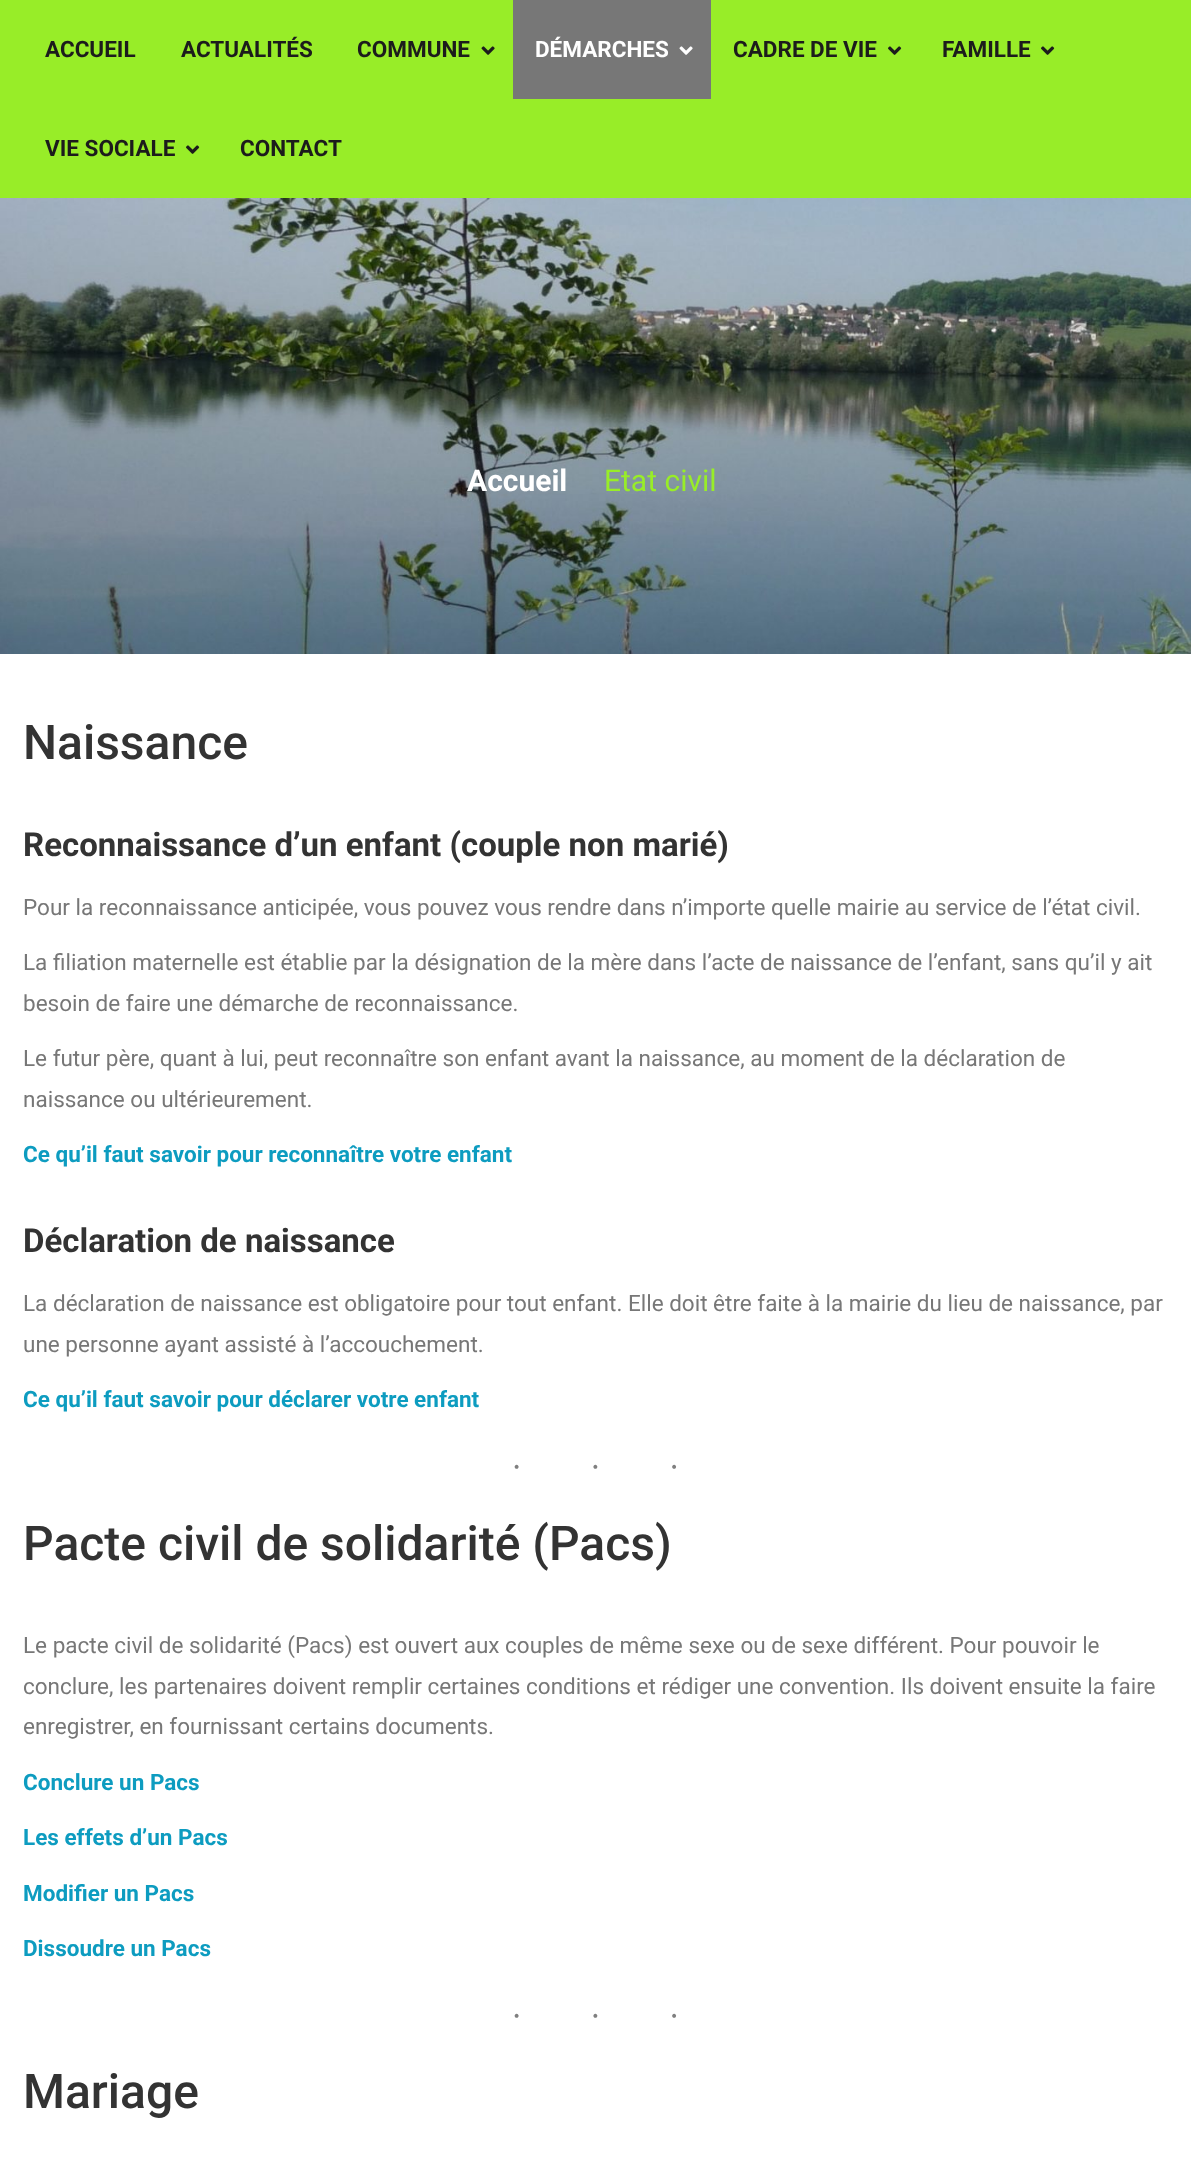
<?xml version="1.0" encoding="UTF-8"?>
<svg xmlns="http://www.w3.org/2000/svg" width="1191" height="2167">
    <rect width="100%" height="100%" fill="#FFFFFF"/>
    <rect x="0" y="0" width="1191" height="198" fill="#98ED28"/>
    <text x="45" y="57" font-family="Roboto" font-size="22.5" font-weight="700" fill="#1C1C1C">ACCUEIL</text>
    <text x="181" y="57" font-family="Roboto" font-size="22.5" font-weight="700" fill="#1C1C1C">ACTUALITÉS</text>
    <text x="357" y="57" font-family="Roboto" font-size="22.5" font-weight="700" fill="#1C1C1C">COMMUNE</text>
    <image x="481" y="46" width="14" height="9" href="img_01.png"/>
    <rect x="513" y="0" width="198" height="99" fill="#777777"/>
    <text x="535" y="57" font-family="Roboto" font-size="22.5" font-weight="700" fill="#FFFFFF">DÉMARCHES</text>
    <image x="679" y="46" width="14" height="9" href="img_02.png"/>
    <text x="733" y="57" font-family="Roboto" font-size="22.5" font-weight="700" fill="#1C1C1C">CADRE DE VIE</text>
    <image x="888" y="46" width="14" height="9" href="img_03.png"/>
    <text x="942" y="57" font-family="Roboto" font-size="22.5" font-weight="700" fill="#1C1C1C">FAMILLE</text>
    <image x="1041" y="46" width="14" height="9" href="img_03.png"/>
    <text x="45" y="156" font-family="Roboto" font-size="22.5" font-weight="700" fill="#1C1C1C">VIE SOCIALE</text>
    <image x="186" y="145" width="14" height="9" href="img_03.png"/>
    <text x="240" y="156" font-family="Roboto" font-size="22.5" font-weight="700" fill="#1C1C1C">CONTACT</text>
    <image x="0" y="198" width="1191" height="456" href="img_04.png"/>
    <text x="467" y="491" font-family="Roboto" font-size="30" font-weight="700" fill="#FFFFFF">Accueil</text>
    <text x="604" y="491" font-family="Roboto" font-size="30" fill="#98ED28">Etat civil</text>
    <text x="23" y="759" font-family="Roboto" font-size="48" font-weight="500" fill="#333333">Naissance</text>
    <text x="23" y="856" font-family="Roboto" font-size="33" font-weight="700" fill="#333333">Reconnaissance d’un enfant (couple non marié)</text>
    <text x="23" y="915" font-family="Roboto" font-size="22.5" fill="#777777">Pour la reconnaissance anticipée, vous pouvez vous rendre dans n’importe quelle mairie au service de l’état civil.</text>
    <text font-family="Roboto" font-size="22.5" fill="#777777">
        <tspan x="23" y="970">La filiation maternelle est établie par la désignation de la mère dans l’acte de naissance de l’enfant, sans qu’il y ait</tspan>
        <tspan x="23" y="1011">besoin de faire une démarche de reconnaissance.</tspan>
    </text>
    <text font-family="Roboto" font-size="22.5" fill="#777777">
        <tspan x="23" y="1066">Le futur père, quant à lui, peut reconnaître son enfant avant la naissance, au moment de la déclaration de</tspan>
        <tspan x="23" y="1107">naissance ou ultérieurement.</tspan>
    </text>
    <text x="23" y="1162" font-family="Roboto" font-size="22.5" font-weight="700" fill="#0D9CC0">Ce qu’il faut savoir pour reconnaître votre enfant</text>
    <text x="23" y="1252" font-family="Roboto" font-size="33" font-weight="700" fill="#333333">Déclaration de naissance</text>
    <text font-family="Roboto" font-size="22.5" fill="#777777">
        <tspan x="23" y="1311">La déclaration de naissance est obligatoire pour tout enfant. Elle doit être faite à la mairie du lieu de naissance, par</tspan>
        <tspan x="23" y="1352">une personne ayant assisté à l’accouchement.</tspan>
    </text>
    <text x="23" y="1407" font-family="Roboto" font-size="22.5" font-weight="700" fill="#0D9CC0">Ce qu’il faut savoir pour déclarer votre enfant</text>
    <text x="511" y="1478" font-family="Liberation Serif" font-size="33.75" letter-spacing="67.5" fill="#808080">···</text>
    <text x="23" y="1560" font-family="Roboto" font-size="48" font-weight="500" fill="#333333">Pacte civil de solidarité (Pacs)</text>
    <text font-family="Roboto" font-size="22.5" fill="#777777">
        <tspan x="23" y="1653">Le pacte civil de solidarité (Pacs) est ouvert aux couples de même sexe ou de sexe différent. Pour pouvoir le</tspan>
        <tspan x="23" y="1694">conclure, les partenaires doivent remplir certaines conditions et rédiger une convention. Ils doivent ensuite la faire</tspan>
        <tspan x="23" y="1734">enregistrer, en fournissant certains documents.</tspan>
    </text>
    <text x="23" y="1790" font-family="Roboto" font-size="22.5" font-weight="700" fill="#0D9CC0">Conclure un Pacs</text>
    <text x="23" y="1845" font-family="Roboto" font-size="22.5" font-weight="700" fill="#0D9CC0">Les effets d’un Pacs</text>
    <text x="23" y="1901" font-family="Roboto" font-size="22.5" font-weight="700" fill="#0D9CC0">Modifier un Pacs</text>
    <text x="23" y="1956" font-family="Roboto" font-size="22.5" font-weight="700" fill="#0D9CC0">Dissoudre un Pacs</text>
    <text x="511" y="2027" font-family="Liberation Serif" font-size="33.75" letter-spacing="67.5" fill="#808080">···</text>
    <text x="23" y="2108" font-family="Roboto" font-size="48" font-weight="500" fill="#333333">Mariage</text>
</svg>
